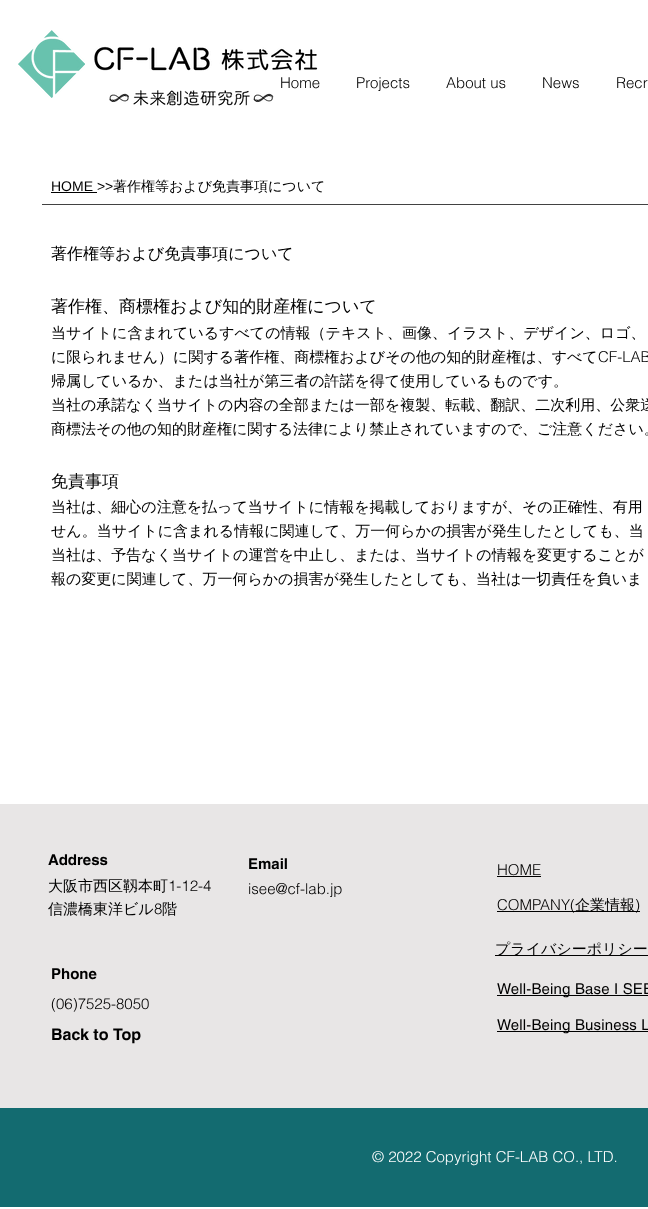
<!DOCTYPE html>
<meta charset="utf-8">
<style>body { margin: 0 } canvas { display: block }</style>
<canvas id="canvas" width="648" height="1209"></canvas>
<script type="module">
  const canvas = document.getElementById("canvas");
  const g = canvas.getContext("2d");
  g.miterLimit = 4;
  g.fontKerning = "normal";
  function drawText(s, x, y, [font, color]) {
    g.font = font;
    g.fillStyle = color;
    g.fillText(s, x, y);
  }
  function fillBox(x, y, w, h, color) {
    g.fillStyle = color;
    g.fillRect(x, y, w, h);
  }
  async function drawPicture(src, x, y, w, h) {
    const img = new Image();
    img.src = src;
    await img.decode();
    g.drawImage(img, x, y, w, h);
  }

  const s1 = ["300 15px helvetica", "#000000"];
  const s2 = ["14px Liberation Sans", "#000000"];
  const s3 = ["500 14px WenQuanYi Zen Hei", "#000000"];
  const s4 = ["500 16px WenQuanYi Zen Hei", "#000000"];
  const s5 = ["500 17px WenQuanYi Zen Hei", "#000000"];
  const s6 = ["500 15px WenQuanYi Zen Hei", "#000000"];
  const s7 = ["bold 15px helvetica", "#000000"];
  const s8 = ["bold 16px helvetica", "#000000"];
  const s9 = ["15px helvetica", "#000000"];
  const s10 = ["300 15px helvetica", "#FFFFFF"];

  fillBox(0, 0, 648, 1209, "#FFFFFF");
  await drawPicture("pic1.png", 18, 30, 67, 68);
  await drawPicture("pic2.png", 94, 46, 224, 25);
  await drawPicture("pic3.png", 109, 90, 165, 16);
  drawText("Home", 280, 88, s1);
  drawText("Projects", 356, 88, s1);
  drawText("About us", 446, 88, s1);
  drawText("News", 542, 88, s1);
  drawText("Recr", 616, 88, s1);
  drawText("HOME >>", 51, 191, s2);
  fillBox(51, 192, 46, 1, "#000000");
  drawText("著作権等および免責事項について", 113, 191, s3);
  fillBox(42, 204, 606, 1, "#424242");
  drawText("著作権等および免責事項について", 51, 259, s4);
  drawText("著作権、商標権および知的財産権について", 51, 312, s5);
  drawText("当サイトに含まれているすべての情報（テキスト、画像、イラスト、デザイン、ロゴ、", 51, 338, s6);
  drawText("に限られません）に関する著作権、商標権およびその他の知的財産権は、すべて", 51, 362, s6);
  drawText("CF-LAB", 598, 362, s1);
  drawText("帰属しているか、または当社が第三者の許諾を得て使用しているものです。", 51, 386, s6);
  drawText("当社の承諾なく当サイトの内容の全部または一部を複製、転載、翻訳、二次利用、公衆送", 51, 410, s6);
  drawText("商標法その他の知的財産権に関する法律により禁止されていますので、ご注意ください。", 51, 434, s6);
  drawText("免責事項", 51, 487, s5);
  drawText("当社は、細心の注意を払って当サイトに情報を掲載しておりますが、その正確性、有用", 51, 512, s6);
  drawText("せん。当サイトに含まれる情報に関連して、万一何らかの損害が発生したとしても、当", 51, 536, s6);
  drawText("当社は、予告なく当サイトの運営を中止し、または、当サイトの情報を変更することが", 51, 560, s6);
  drawText("報の変更に関連して、万一何らかの損害が発生したとしても、当社は一切責任を負いま", 51, 584, s6);
  fillBox(0, 804, 648, 304, "#E8E6E6");
  drawText("Address", 48, 865, s7);
  drawText("Email", 248, 869, s7);
  drawText("大阪市西区靱本町", 48, 891, s6);
  drawText("1-12-4", 168, 891, s1);
  drawText("信濃橋東洋ビル", 48, 914, s6);
  drawText("8", 154, 914, s1);
  drawText("階", 162, 914, s6);
  drawText("isee@cf-lab.jp", 248, 894, s1);
  drawText("Phone", 51, 979, s7);
  drawText("(06)7525-8050", 51, 1009, s1);
  drawText("Back to Top", 51, 1040, s8);
  drawText("HOME", 497, 875, s1);
  fillBox(497, 876, 44, 1, "#000000");
  fillBox(497, 911, 143, 1, "#000000");
  drawText("COMPANY(", 497, 910, s1);
  drawText("企業情報", 575, 910, s6);
  drawText(")", 635, 910, s1);
  fillBox(495, 955, 153, 1, "#000000");
  drawText("プライバシーポリシー", 495, 954, s6);
  fillBox(497, 995, 151, 1, "#000000");
  g.letterSpacing = "0.15px";
  drawText("Well-Being Base I SEE", 497, 994, s9);
  fillBox(497, 1031, 151, 1, "#000000");
  drawText("Well-Being Business L", 497, 1030, s9);
  fillBox(0, 1108, 648, 99, "#136B70");
  g.letterSpacing = "0px";
  drawText("©︎ 2022 Copyright CF-LAB CO., LTD.", 372, 1162, s10);
</script>
